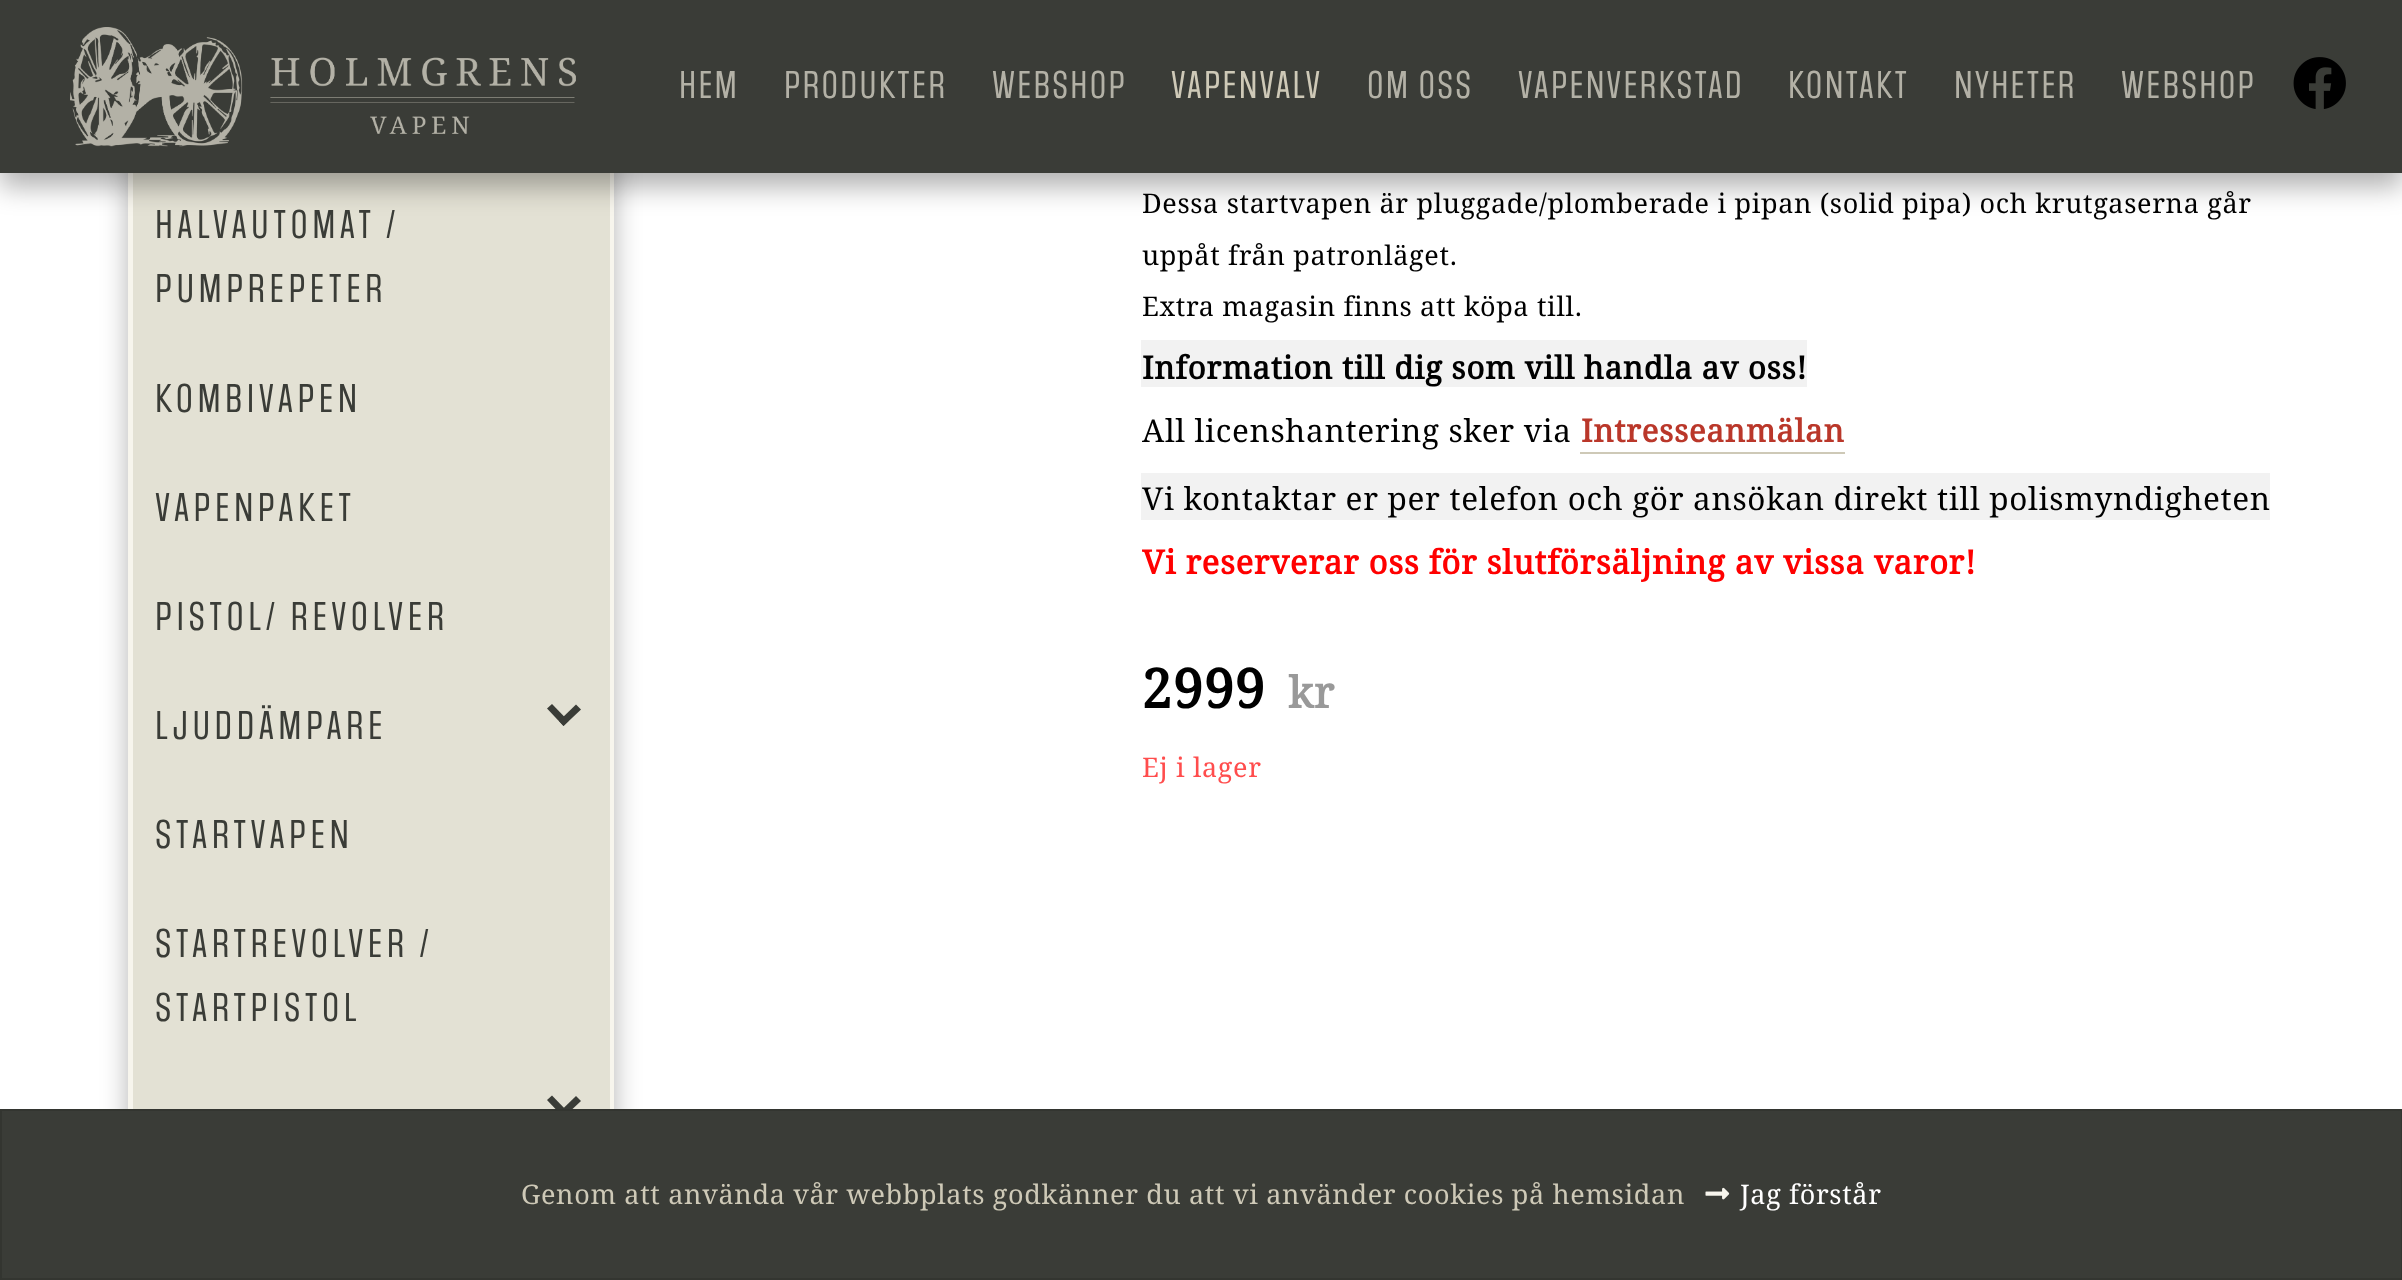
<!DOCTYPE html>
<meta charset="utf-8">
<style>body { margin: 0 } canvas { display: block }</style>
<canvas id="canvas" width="2402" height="1280"></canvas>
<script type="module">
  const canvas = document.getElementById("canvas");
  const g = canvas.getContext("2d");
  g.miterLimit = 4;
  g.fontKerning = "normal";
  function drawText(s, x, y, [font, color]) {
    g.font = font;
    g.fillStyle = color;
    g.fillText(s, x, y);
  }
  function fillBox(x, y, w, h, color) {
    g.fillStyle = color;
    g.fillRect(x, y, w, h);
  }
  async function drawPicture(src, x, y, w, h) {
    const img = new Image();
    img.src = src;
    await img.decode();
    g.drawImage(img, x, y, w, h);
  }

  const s1 = ["32.5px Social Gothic", "#B3B1A6"];
  const s2 = ["32.5px Social Gothic", "#CEC9B7"];
  const s3 = ["33.75px Social Gothic", "#3A3C37"];
  const s4 = ["27px Droid Serif", "#000000"];
  const s5 = ["bold 31.5px Droid Serif", "#000000"];
  const s6 = ["31.5px Droid Serif", "#000000"];
  const s7 = ["bold 31.5px Droid Serif", "#BA372A"];
  const s8 = ["bold 33px Droid Serif", "#FF0000"];
  const s9 = ["bold 54px Droid Serif", "#000000"];
  const s10 = ["bold 43px Droid Serif", "#999999"];
  const s11 = ["27px Droid Serif", "#FF4D4D"];
  const s12 = ["27px Droid Serif", "#CEC9B7"];
  const s13 = ["27px Droid Serif", "#FFFFFF"];

  fillBox(0, 0, 2402, 1280, "#FFFFFF");
  g.fillStyle = "rgba(0, 0, 0, 0.3)";
  g.filter = "blur(13.5px)";
  g.beginPath();
  g.roundRect(128, -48, 486, 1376, 7);
  g.fill();
  g.filter = "none";
  g.strokeStyle = "#F7F5ED";
  g.lineWidth = 5;
  g.strokeRect(130.5, -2.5, 481, 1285);
  fillBox(133, 173, 477, 936, "#E3E1D4");
  g.fillStyle = "rgba(0, 0, 0, 0.3)";
  g.filter = "blur(13.5px)";
  g.beginPath();
  g.rect(0, 14, 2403, 173);
  g.fill();
  g.filter = "none";
  fillBox(0, 0, 2402, 173, "#3A3C37");
  await drawPicture("pic1.png", 70, 27, 506, 120);
  g.letterSpacing = "2.25px";
  drawText("HEM", 679, 98, s1);
  drawText("PRODUKTER", 784, 98, s1);
  drawText("WEBSHOP", 992, 98, s1);
  drawText("VAPENVALV", 1171, 98, s2);
  drawText("OM OSS", 1367, 98, s1);
  drawText("VAPENVERKSTAD", 1518, 98, s1);
  drawText("KONTAKT", 1788, 98, s1);
  drawText("NYHETER", 1954, 98, s1);
  drawText("WEBSHOP", 2121, 98, s1);
  await drawPicture("pic2.png", 2293, 57, 53, 52);
  g.letterSpacing = "4.5px";
  drawText("HALVAUTOMAT /", 155, 238, s3);
  drawText("PUMPREPETER", 155, 302, s3);
  drawText("KOMBIVAPEN", 155, 412, s3);
  drawText("VAPENPAKET", 155, 521, s3);
  drawText("PISTOL/ REVOLVER", 155, 630, s3);
  drawText("LJUDDÄMPARE", 155, 739, s3);
  g.beginPath();
  g.moveTo(563.5, 726);
  g.lineTo(547, 708.5);
  g.lineTo(552, 704);
  g.lineTo(568.5, 721);
  g.closePath();
  g.fill();
  g.beginPath();
  g.moveTo(563.5, 726);
  g.lineTo(559, 721);
  g.lineTo(576, 704.5);
  g.lineTo(581, 709.5);
  g.closePath();
  g.fill();
  drawText("STARTVAPEN", 155, 848, s3);
  drawText("STARTREVOLVER /", 155, 957, s3);
  drawText("STARTPISTOL", 155, 1021, s3);
  g.beginPath();
  g.moveTo(563.5, 1117.5);
  g.lineTo(547, 1100);
  g.lineTo(552, 1095.5);
  g.lineTo(568.5, 1112.5);
  g.closePath();
  g.fill();
  g.beginPath();
  g.moveTo(563.5, 1117.5);
  g.lineTo(559, 1112.5);
  g.lineTo(576, 1096);
  g.lineTo(581, 1101);
  g.closePath();
  g.fill();
  g.letterSpacing = "0.67px";
  drawText("Dessa startvapen är pluggade/plomberade i pipan (solid pipa) och krutgaserna går", 1142, 213, s4);
  drawText("uppåt från patronläget.", 1142, 265, s4);
  drawText("Extra magasin finns att köpa till.", 1142, 316, s4);
  fillBox(1141, 340, 666, 47, "#F2F2F2");
  drawText("Information till dig som vill handla av oss!", 1142, 379, s5);
  drawText("All licenshantering sker via", 1142, 442, s6);
  drawText("Intresseanmälan", 1581, 442, s7);
  fillBox(1580, 452, 265, 2, "#CEC9B7");
  fillBox(1141, 473, 1129, 47, "#F2F2F2");
  drawText("Vi kontaktar er per telefon och gör ansökan direkt till polismyndigheten", 1142, 510, s6);
  drawText("Vi reserverar oss för slutförsäljning av vissa varor!", 1142, 574, s8);
  drawText("2999", 1142, 708, s9);
  drawText("kr", 1288, 708, s10);
  drawText("Ej i lager", 1142, 777, s11);
  g.fillStyle = "#3A3C37";
  g.beginPath();
  g.rect(1, 1110, 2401, 169);
  g.fill();
  g.strokeStyle = "#333530";
  g.lineWidth = 2;
  g.stroke();
  drawText("Genom att använda vår webbplats godkänner du att vi använder cookies på hemsidan", 521, 1204, s12);
  await drawPicture("pic3.png", 1705, 1187, 25, 13);
  drawText("Jag förstår", 1740, 1204, s13);
</script>
